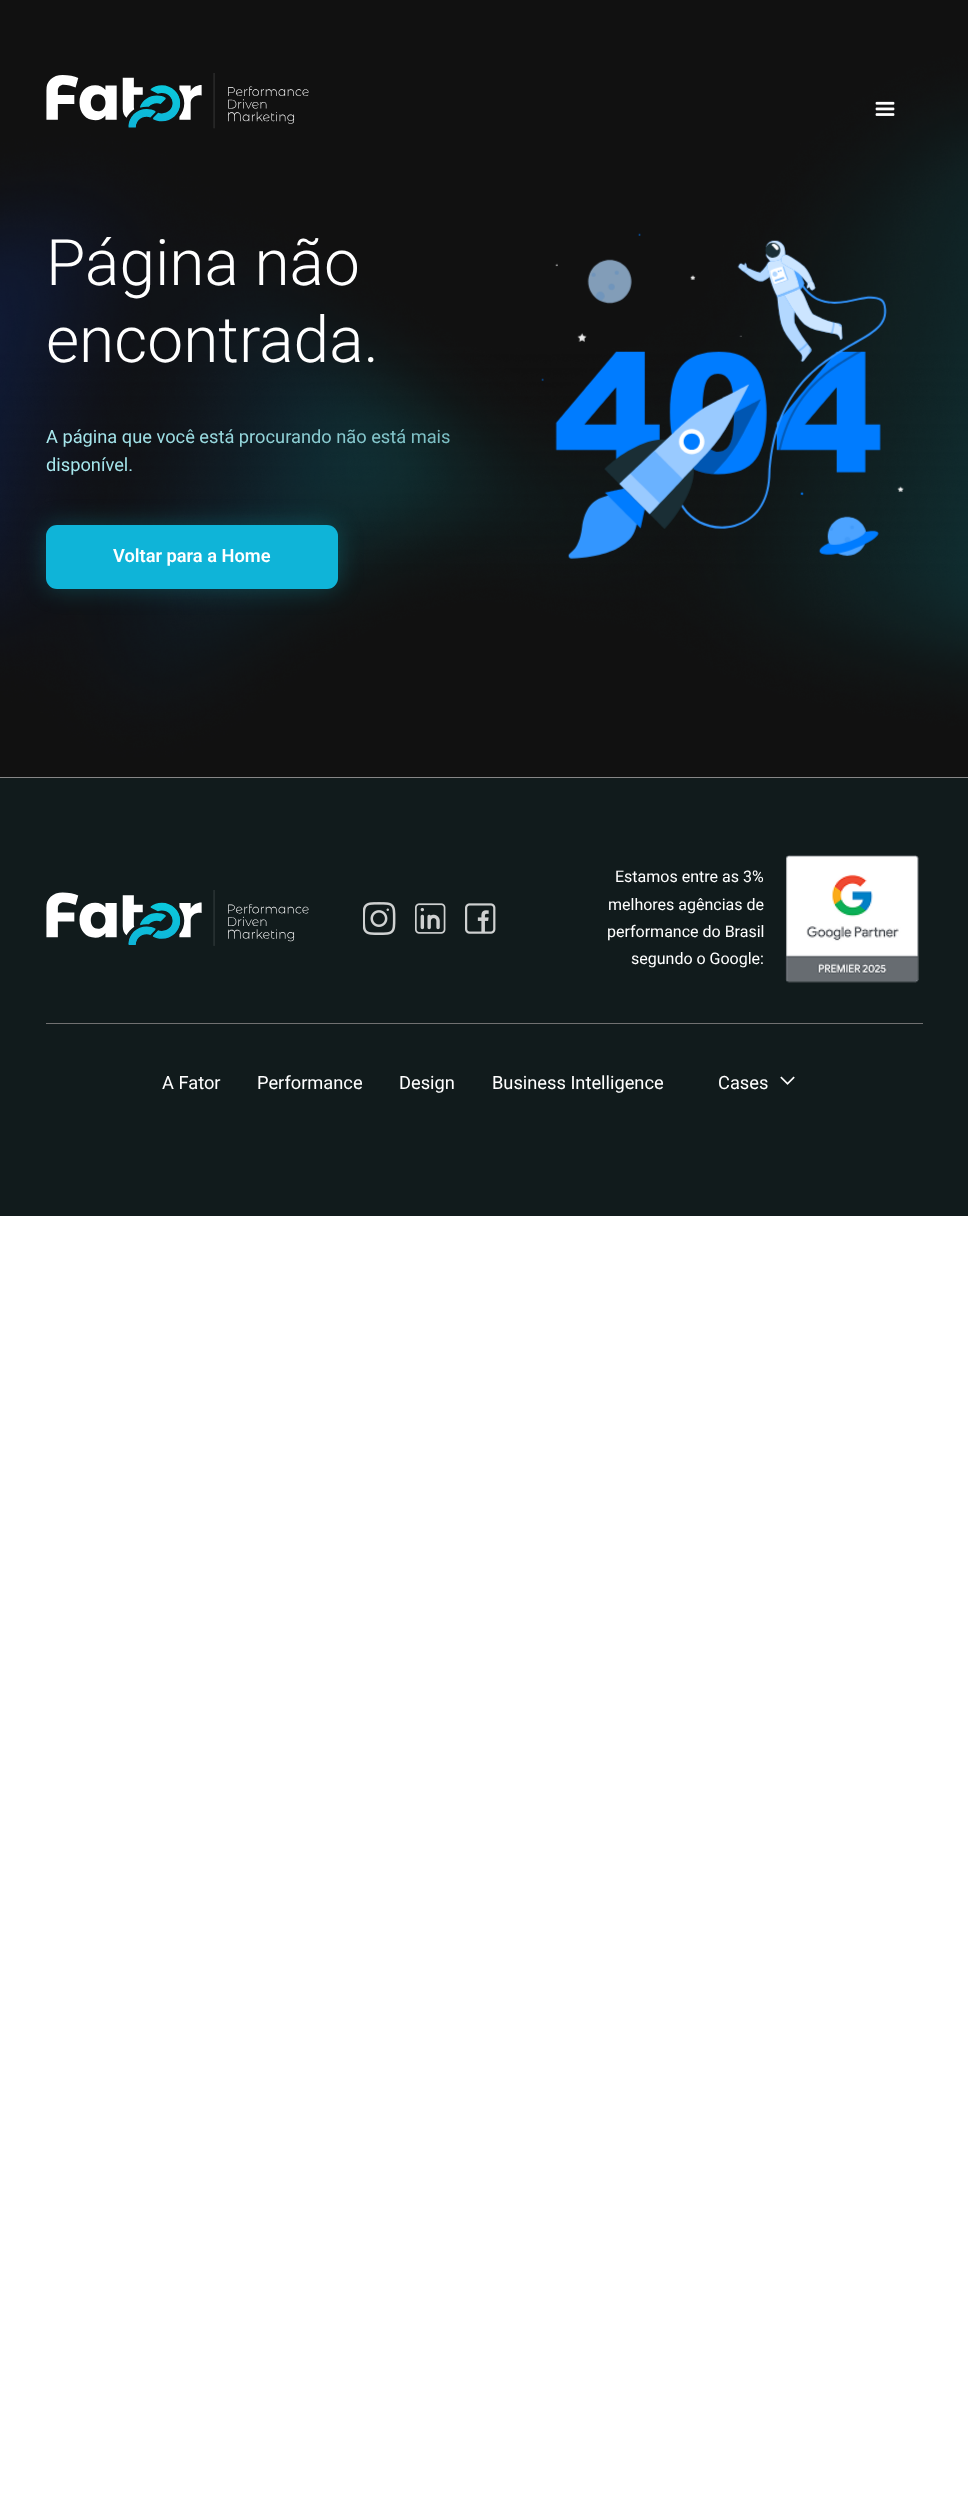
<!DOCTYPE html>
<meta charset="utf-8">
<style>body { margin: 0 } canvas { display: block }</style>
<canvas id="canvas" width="968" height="2508"></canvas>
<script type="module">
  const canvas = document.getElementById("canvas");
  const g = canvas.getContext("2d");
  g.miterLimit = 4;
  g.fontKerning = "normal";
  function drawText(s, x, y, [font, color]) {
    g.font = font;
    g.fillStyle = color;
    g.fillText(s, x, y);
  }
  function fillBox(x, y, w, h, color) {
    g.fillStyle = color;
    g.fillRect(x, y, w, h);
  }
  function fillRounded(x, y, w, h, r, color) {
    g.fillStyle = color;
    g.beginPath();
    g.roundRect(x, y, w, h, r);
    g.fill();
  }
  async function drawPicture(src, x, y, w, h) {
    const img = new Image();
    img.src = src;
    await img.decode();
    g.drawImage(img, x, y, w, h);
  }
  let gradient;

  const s1 = ["300 64px Roboto", "#FFFFFF"];
  const s2 = ["600 18.25px Roboto", "#FFFFFF"];
  const s3 = ["16px Roboto", "#FFFFFF"];
  const s4 = ["18.25px Roboto", "#FFFFFF"];

  fillBox(0, 0, 968, 2508, "#FFFFFF");
  await drawPicture("pic3.png", 0, 0, 968, 778);
  await drawPicture("pic1.png", 46, 73, 263, 56);
  await drawPicture("pic2.png", 875, 101, 20, 15);
  drawText("Página não", 46, 285, s1);
  drawText("encontrada.", 46, 362, s1);
  g.font = "18.25px Roboto";
  gradient = g.createLinearGradient(45, 471, 476, 433);
  gradient.addColorStop(0, "#AAEAF0");
  gradient.addColorStop(1, "#78BBC0");
  g.fillStyle = gradient;
  g.fillText("A página que você está procurando não está mais", 46, 443);
  g.fillText("disponível.", 46, 471);
  g.fillStyle = "rgba(11, 201, 220, 0.25)";
  g.filter = "blur(12.5px)";
  g.beginPath();
  g.roundRect(46, 525, 292, 64, 11);
  g.fill();
  g.filter = "none";
  fillRounded(46, 525, 292, 64, 11, "#0FB4D8");
  drawText("Voltar para a Home", 113, 562, s2);
  await drawPicture("pic4.png", 541, 233, 363, 326);
  fillBox(0, 778, 968, 438, "#111B1C");
  await drawPicture("pic5.png", 46, 890, 263, 56);
  await drawPicture("pic6.png", 363, 902, 33, 33);
  await drawPicture("pic7.png", 415, 903, 31, 31);
  await drawPicture("pic8.png", 465, 903, 31, 31);
  drawText("Estamos entre as 3%", 615, 882, s3);
  drawText("melhores agências de", 608, 910, s3);
  drawText("performance do Brasil", 607, 937, s3);
  drawText("segundo o Google:", 631, 964, s3);
  await drawPicture("pic9.png", 785, 855, 134, 128);
  fillBox(46, 1023, 877, 1, "#717171");
  drawText("A Fator", 162, 1089, s4);
  drawText("Performance", 257, 1089, s4);
  drawText("Design", 399, 1089, s4);
  drawText("Business Intelligence", 492, 1089, s4);
  drawText("Cases", 718, 1089, s4);
  await drawPicture("pic10.png", 780, 1076, 15, 9);
</script>
